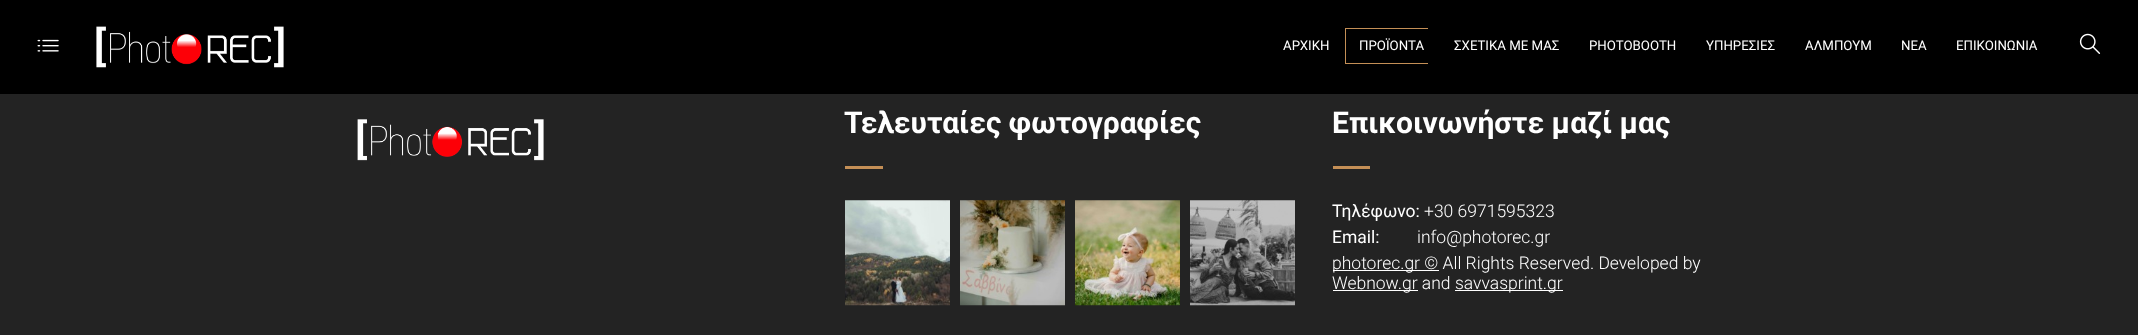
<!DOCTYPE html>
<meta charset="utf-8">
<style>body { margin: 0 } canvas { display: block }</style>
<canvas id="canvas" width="2138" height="335"></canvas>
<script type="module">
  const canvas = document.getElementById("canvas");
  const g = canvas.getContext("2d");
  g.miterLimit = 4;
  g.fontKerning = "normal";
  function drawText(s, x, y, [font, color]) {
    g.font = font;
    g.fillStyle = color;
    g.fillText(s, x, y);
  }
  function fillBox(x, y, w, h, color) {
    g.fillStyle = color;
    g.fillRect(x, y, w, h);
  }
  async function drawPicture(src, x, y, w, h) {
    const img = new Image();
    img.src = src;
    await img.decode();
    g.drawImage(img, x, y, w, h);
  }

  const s1 = ["13.25px Roboto", "#FFFFFF"];
  const s2 = ["bold 30px Roboto", "#FFFFFF"];
  const s3 = ["17.5px Roboto", "#FFFFFF"];
  const s4 = ["300 17.5px Roboto", "#FFFFFF"];

  fillBox(0, 0, 2138, 335, "#232323");
  fillBox(0, 0, 2138, 94, "#000000");
  await drawPicture("pic1.png", 37, 39, 22, 13);
  await drawPicture("pic2.png", 96, 26, 188, 42);
  drawText("ΑΡΧΙΚΗ", 1283, 50, s1);
  drawText("ΠΡΟΪΟΝΤΑ", 1359, 50, s1);
  fillBox(1345, 28, 83, 1, "#C48F56");
  fillBox(1345, 63, 83, 1, "#C48F56");
  fillBox(1345, 28, 1, 36, "#C48F56");
  drawText("ΣΧΕΤΙΚΑ ΜΕ ΜΑΣ", 1454, 50, s1);
  drawText("PHOTOBOOTH", 1589, 50, s1);
  drawText("ΥΠΗΡΕΣΙΕΣ", 1706, 50, s1);
  drawText("ΑΛΜΠΟΥΜ", 1805, 50, s1);
  drawText("ΝΕΑ", 1901, 50, s1);
  drawText("ΕΠΙΚΟΙΝΩΝΙΑ", 1956, 50, s1);
  await drawPicture("pic3.png", 2079, 33, 22, 21);
  await drawPicture("pic4.png", 357, 119, 187, 42);
  drawText("Τελευταίες φωτογραφίες", 844, 133, s2);
  fillBox(845, 166, 38, 3, "#C48F56");
  await drawPicture("pic5.png", 845, 200, 105, 106);
  await drawPicture("pic6.png", 960, 200, 105, 106);
  await drawPicture("pic7.png", 1075, 200, 105, 106);
  await drawPicture("pic8.png", 1190, 200, 105, 106);
  drawText("Επικοινωνήστε μαζί μας", 1332, 133, s2);
  fillBox(1333, 166, 37, 3, "#C48F56");
  drawText("Τηλέφωνο:", 1332, 217, s3);
  drawText("+30 6971595323", 1424, 217, s4);
  drawText("Email:", 1332, 243, s3);
  drawText("info@photorec.gr", 1417, 243, s4);
  fillBox(1333, 270, 106, 1, "#FFFFFF");
  drawText("photorec.gr © All Rights Reserved. Developed by", 1332, 269, s4);
  fillBox(1333, 290, 85, 1, "#FFFFFF");
  drawText("Webnow.gr and", 1332, 289, s4);
  fillBox(1455, 290, 108, 1, "#FFFFFF");
  drawText("savvasprint.gr", 1455, 289, s4);
</script>
